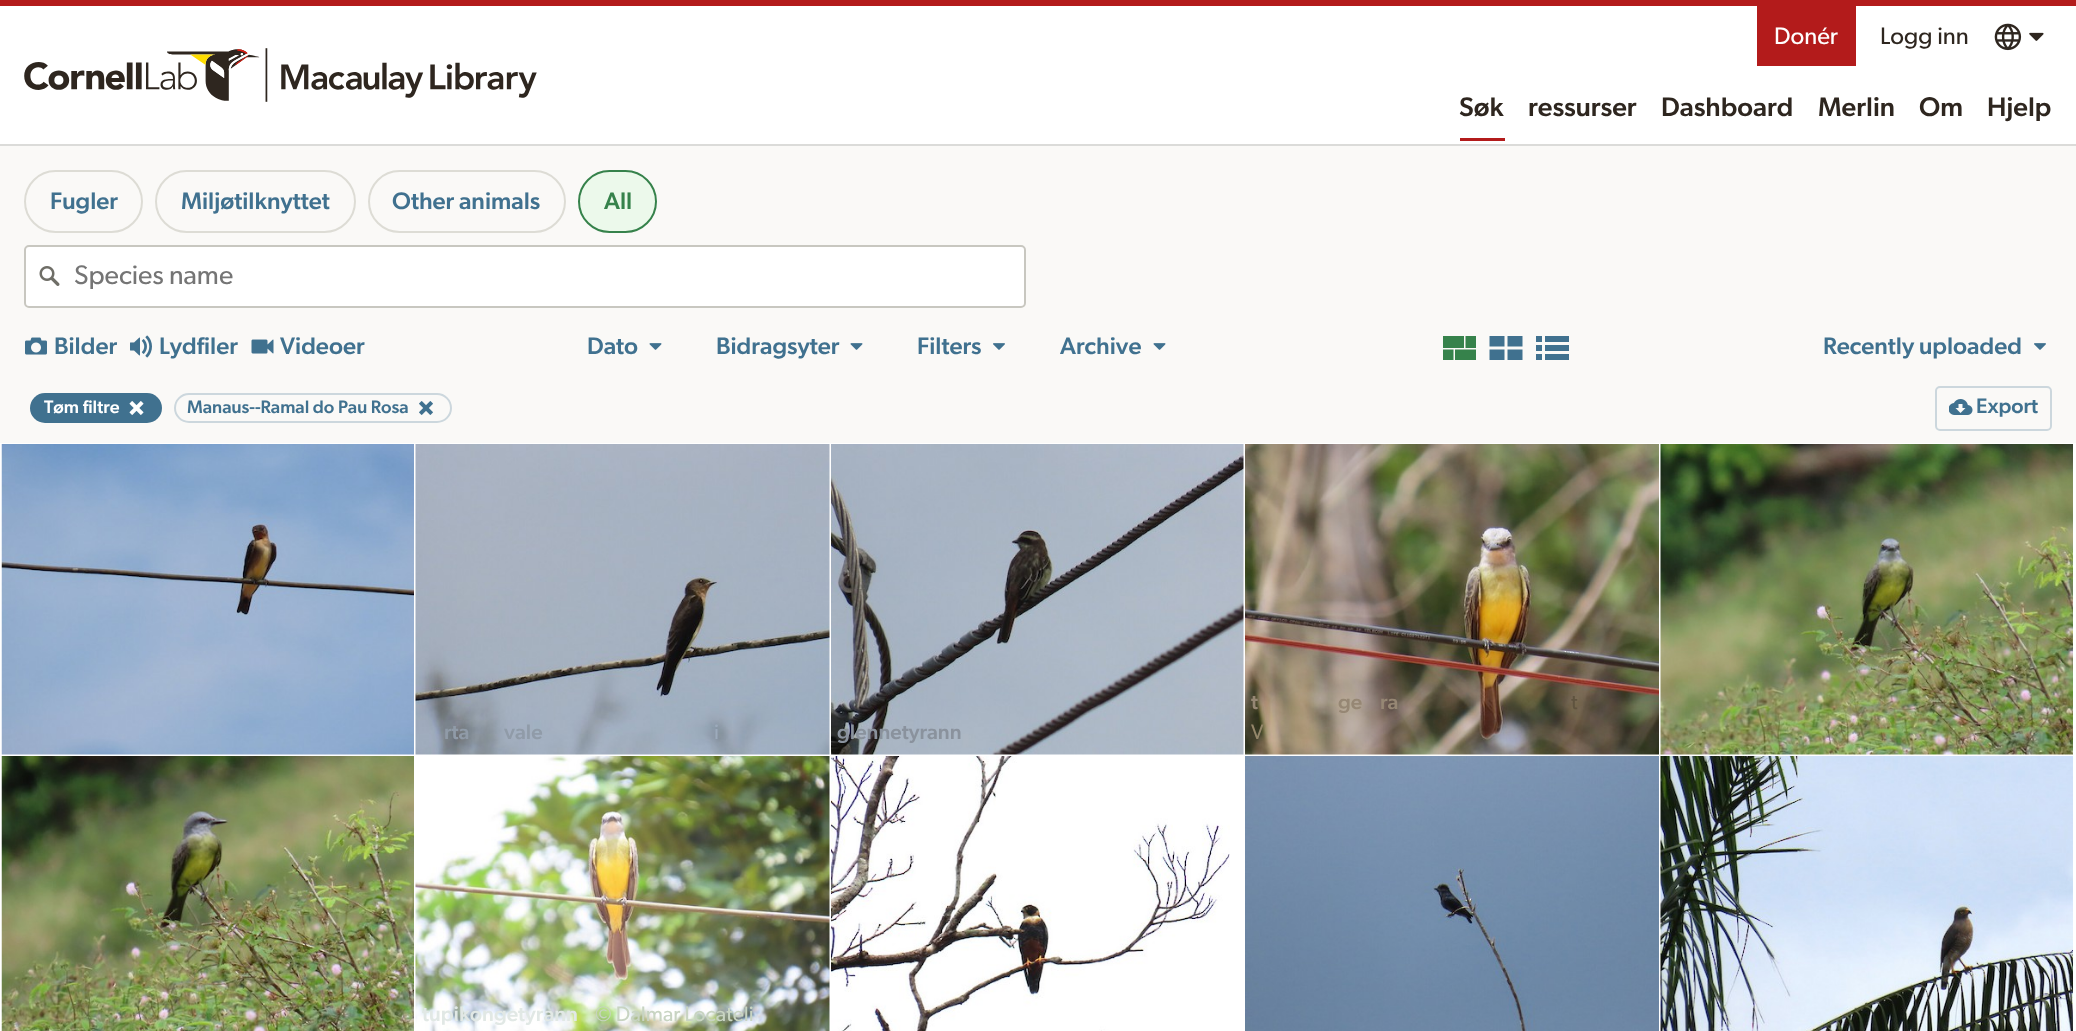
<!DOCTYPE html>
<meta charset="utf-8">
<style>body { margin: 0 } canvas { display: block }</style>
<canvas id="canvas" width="2076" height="1031"></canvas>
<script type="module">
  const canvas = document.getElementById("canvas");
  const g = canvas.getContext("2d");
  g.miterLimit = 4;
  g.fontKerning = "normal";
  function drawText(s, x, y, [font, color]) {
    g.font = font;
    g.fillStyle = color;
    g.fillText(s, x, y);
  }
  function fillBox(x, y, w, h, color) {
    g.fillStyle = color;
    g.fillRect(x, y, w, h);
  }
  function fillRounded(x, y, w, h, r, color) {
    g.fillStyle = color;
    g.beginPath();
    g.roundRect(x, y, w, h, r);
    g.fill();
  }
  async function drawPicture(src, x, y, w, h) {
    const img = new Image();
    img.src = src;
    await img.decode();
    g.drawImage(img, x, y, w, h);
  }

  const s1 = ["24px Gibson", "#FFFFFF"];
  const s2 = ["24px Gibson", "#2E261F"];
  const s3 = ["500 27px Gibson", "#2E261F"];
  const s4 = ["500 24px Gibson", "#40718F"];
  const s5 = ["500 24px Gibson", "#36824B"];
  const s6 = ["27px Gibson", "#757575"];
  const s7 = ["500 18px Gibson", "#FFFFFF"];
  const s8 = ["500 18px Gibson", "#40718F"];
  const s9 = ["500 21px Gibson", "#40718F"];
  const s10 = ["500 21px Gibson", "#909BA8"];
  const s11 = ["21px Gibson", "#9DABBC"];
  const s12 = ["500 21px Gibson", "#8A929D"];
  const s13 = ["500 21px Gibson", "#968774"];
  const s14 = ["21px Gibson", "#5F533F"];
  const s15 = ["21px Gibson", "#94866A"];
  const s16 = ["500 21px Gibson", "#E1E8E5"];
  const s17 = ["21px Gibson", "#C8D4C2"];

  fillBox(0, 0, 2076, 1031, "#FFFFFF");
  fillBox(0, 0, 2076, 6, "#B31B1B");
  fillBox(0, 144, 2076, 2, "#DBDBD9");
  await drawPicture("pic1.png", 24, 48, 513, 54);
  fillBox(1757, 6, 99, 60, "#B31B1B");
  drawText("Donér", 1774, 44, s1);
  drawText("Logg inn", 1880, 44, s2);
  await drawPicture("pic2.png", 1994, 23, 28, 28);
  await drawPicture("pic3.png", 2029, 32, 15, 9);
  fillBox(1460, 138, 45, 3, "#B31B1B");
  drawText("Søk", 1459, 116, s3);
  drawText("ressurser", 1528, 116, s3);
  drawText("Dashboard", 1661, 116, s3);
  drawText("Merlin", 1818, 116, s3);
  drawText("Om", 1919, 116, s3);
  drawText("Hjelp", 1987, 116, s3);
  fillBox(0, 146, 2076, 297, "#FAF9F7");
  g.beginPath();
  g.roundRect(25, 171, 117, 61, 30.5);
  g.strokeStyle = "#DDDCD5";
  g.lineWidth = 2;
  g.stroke();
  drawText("Fugler", 50, 209, s4);
  g.beginPath();
  g.roundRect(156, 171, 199, 61, 30.5);
  g.stroke();
  drawText("Miljøtilknyttet", 181, 209, s4);
  g.beginPath();
  g.roundRect(369, 171, 196, 61, 30.5);
  g.stroke();
  drawText("Other animals", 392, 209, s4);
  g.fillStyle = "#ECF9EB";
  g.beginPath();
  g.roundRect(579, 171, 77, 61, 30.5);
  g.fill();
  g.strokeStyle = "#36824B";
  g.stroke();
  drawText("All", 604, 209, s5);
  g.fillStyle = "#FFFFFF";
  g.beginPath();
  g.roundRect(25, 246, 1000, 61, 4);
  g.fill();
  g.strokeStyle = "#C8C7C0";
  g.stroke();
  await drawPicture("pic4.png", 39, 266, 21, 20);
  drawText("Species name", 74, 284, s6);
  await drawPicture("pic5.png", 25, 337, 22, 18);
  drawText("Bilder", 54, 354, s4);
  await drawPicture("pic6.png", 130, 335, 22, 23);
  drawText("Lydfiler", 159, 354, s4);
  await drawPicture("pic7.png", 251, 339, 23, 15);
  drawText("Videoer", 280, 354, s4);
  drawText("Dato", 587, 354, s4);
  await drawPicture("pic8.png", 649, 343, 13, 7);
  drawText("Bidragsyter", 716, 354, s4);
  await drawPicture("pic8.png", 850, 343, 13, 7);
  drawText("Filters", 917, 354, s4);
  await drawPicture("pic9.png", 993, 343, 12, 7);
  drawText("Archive", 1060, 354, s4);
  await drawPicture("pic8.png", 1153, 343, 13, 7);
  await drawPicture("pic10.png", 1443, 336, 33, 24);
  await drawPicture("pic11.png", 1489, 336, 34, 24);
  await drawPicture("pic12.png", 1536, 336, 33, 24);
  drawText("Recently uploaded", 1823, 354, s4);
  await drawPicture("pic9.png", 2034, 343, 12, 7);
  fillRounded(30, 393, 132, 30, 15, "#40718F");
  drawText("Tøm filtre", 44, 413, s7);
  await drawPicture("pic13.png", 129, 401, 15, 14);
  g.beginPath();
  g.roundRect(175, 394, 276, 28, 14);
  g.strokeStyle = "#CCD7DD";
  g.stroke();
  drawText("Manaus--Ramal do Pau Rosa", 187, 413, s8);
  await drawPicture("pic14.png", 419, 401, 14, 14);
  g.beginPath();
  g.roundRect(1936, 387, 115, 43, 4);
  g.stroke();
  await drawPicture("pic15.png", 1949, 399, 24, 16);
  drawText("Export", 1976, 413, s9);
  await drawPicture("pic16.png", 1, 444, 413, 311);
  await drawPicture("pic17.png", 415, 444, 415, 311);
  drawText("rta", 444, 739, s10);
  drawText("vale", 504, 739, s10);
  drawText("i", 714, 739, s11);
  await drawPicture("pic18.png", 831, 444, 413, 311);
  drawText("glennetyrann", 837, 739, s12);
  await drawPicture("pic19.png", 1245, 444, 414, 311);
  drawText("t", 1251, 709, s13);
  drawText("ge", 1338, 709, s13);
  drawText("ra", 1380, 709, s13);
  drawText("t", 1571, 709, s14);
  drawText("V", 1251, 739, s15);
  await drawPicture("pic20.png", 1660, 444, 413, 311);
  await drawPicture("pic21.png", 1, 756, 413, 275);
  await drawPicture("pic22.png", 415, 756, 415, 275);
  drawText("tupikongetyrann", 422, 1021, s16);
  drawText("© Dalmar Locateli", 595, 1021, s17);
  await drawPicture("pic23.png", 831, 756, 399, 275);
  await drawPicture("pic24.png", 1245, 756, 414, 275);
  await drawPicture("pic25.png", 1660, 756, 413, 275);
</script>
